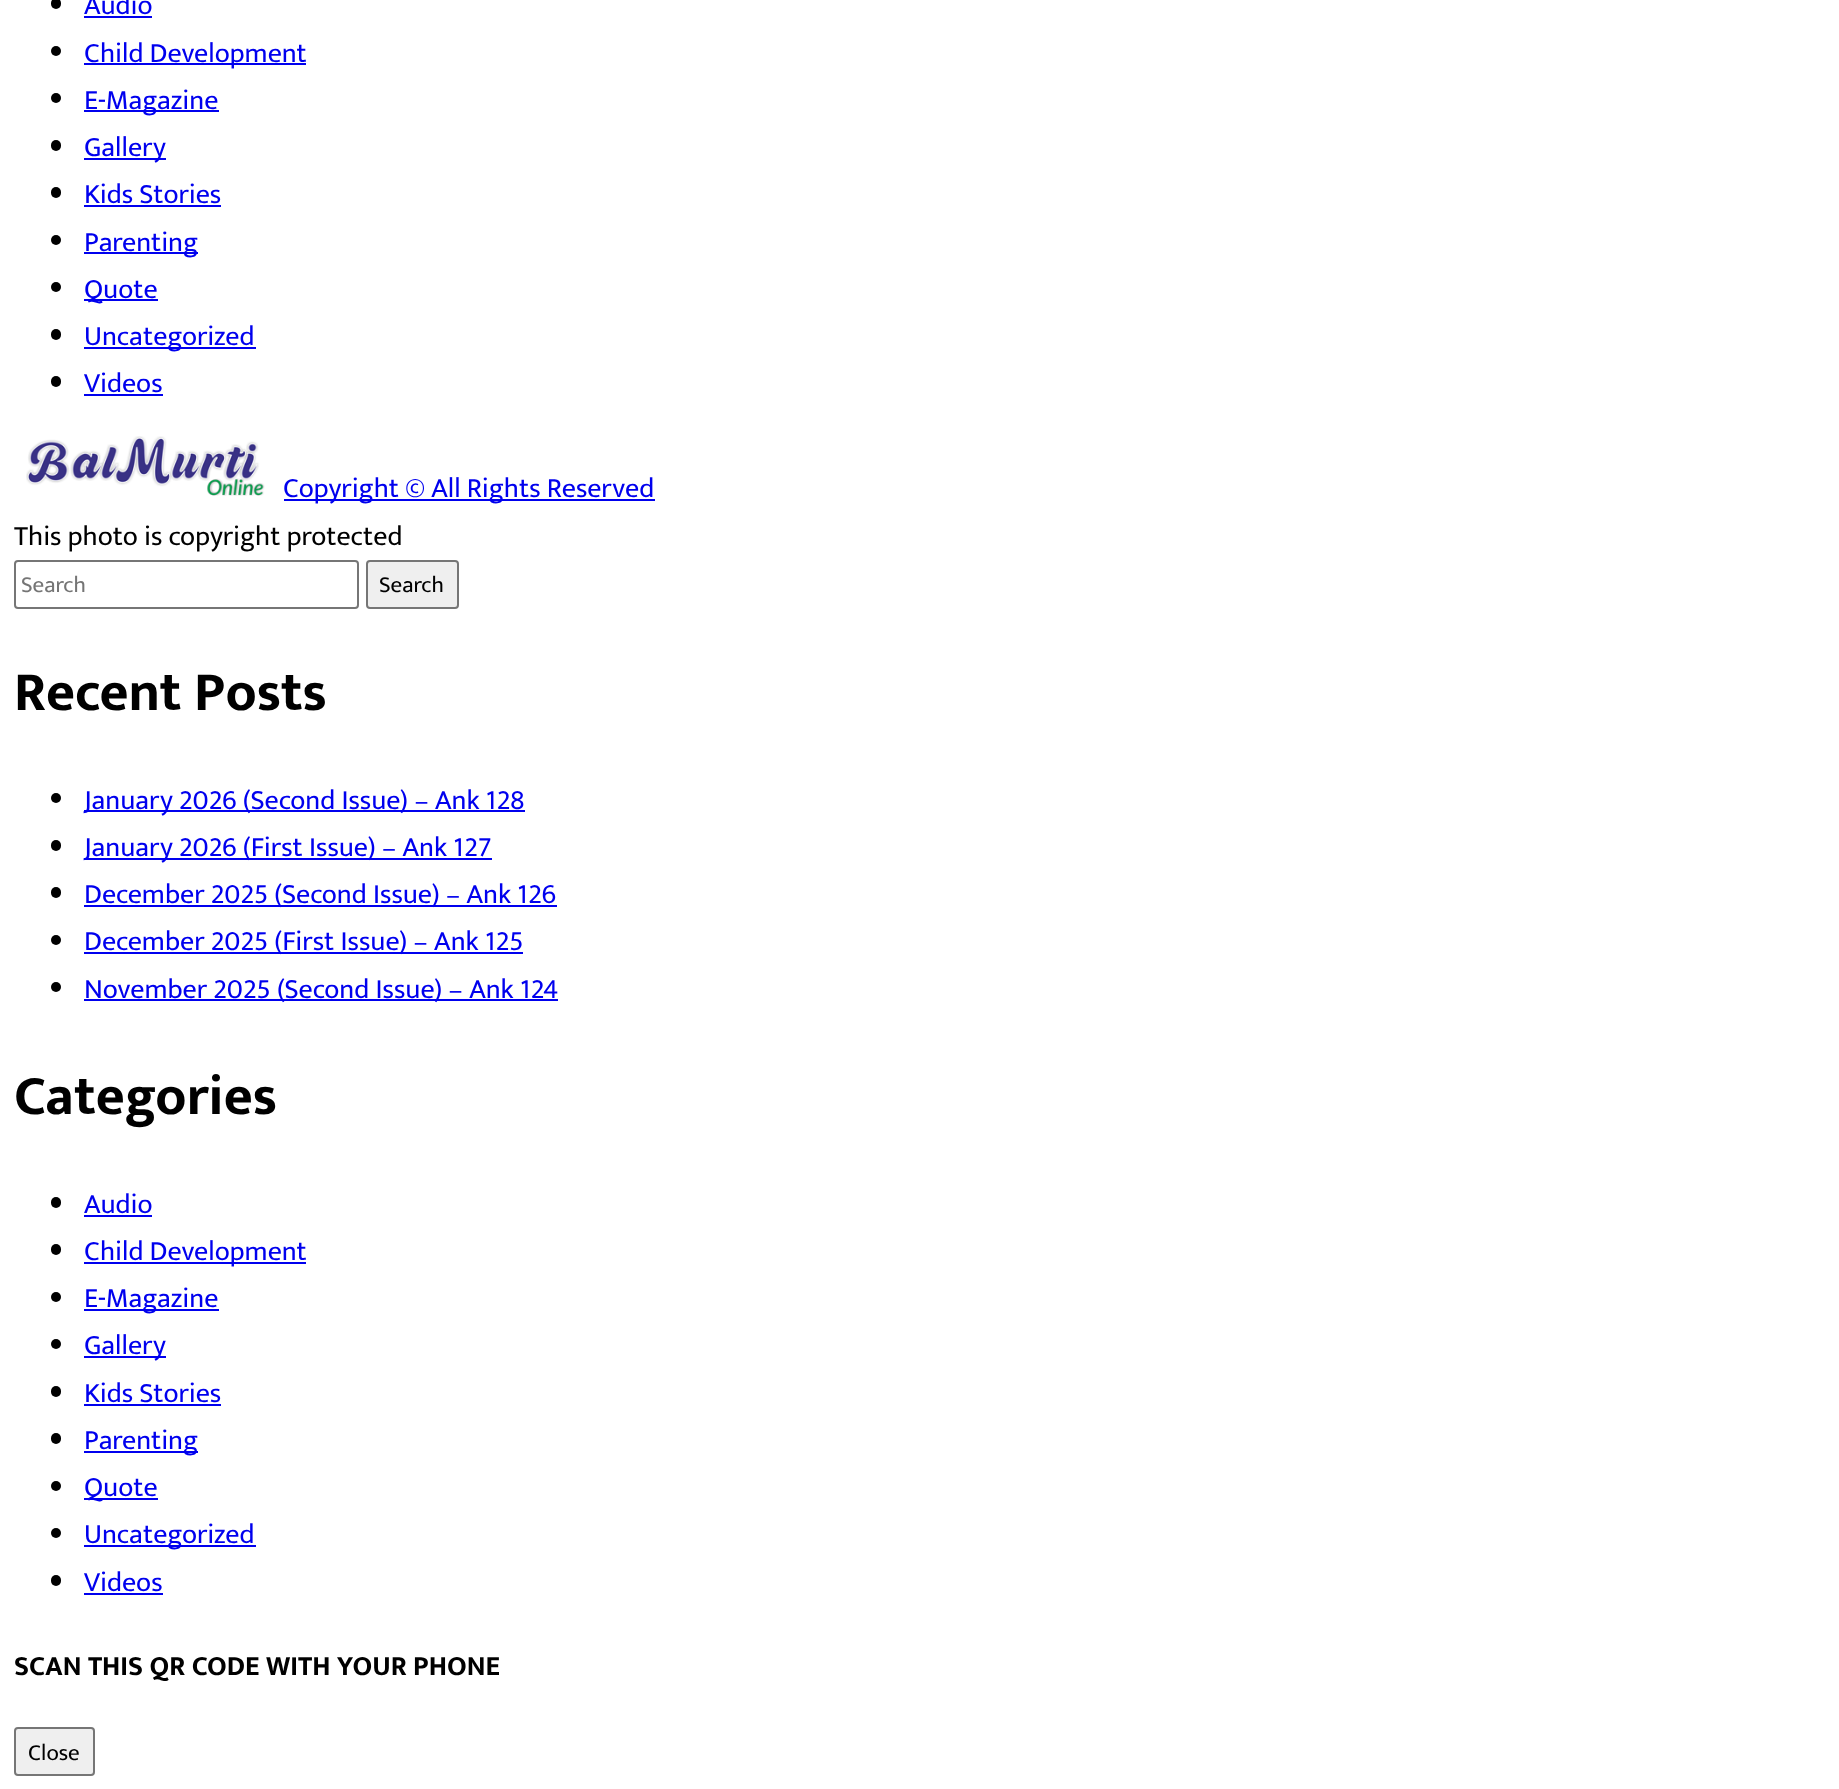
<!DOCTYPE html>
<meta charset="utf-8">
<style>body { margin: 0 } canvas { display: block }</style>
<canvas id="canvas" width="1839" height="1789"></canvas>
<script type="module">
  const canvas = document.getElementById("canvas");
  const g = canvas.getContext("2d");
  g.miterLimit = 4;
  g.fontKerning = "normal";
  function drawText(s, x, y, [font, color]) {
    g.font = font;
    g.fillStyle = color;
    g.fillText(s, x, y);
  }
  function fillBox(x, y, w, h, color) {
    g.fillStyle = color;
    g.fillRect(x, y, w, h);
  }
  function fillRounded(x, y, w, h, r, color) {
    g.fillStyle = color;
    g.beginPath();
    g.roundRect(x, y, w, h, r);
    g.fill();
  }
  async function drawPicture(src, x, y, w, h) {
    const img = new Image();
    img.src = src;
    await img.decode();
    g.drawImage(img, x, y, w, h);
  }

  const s1 = ["28px Mukta Vaani", "#0000EE"];
  const s2 = ["28px Mukta Vaani", "#000000"];
  const s3 = ["23px Mukta Vaani", "#757575"];
  const s4 = ["23px Mukta Vaani", "#000000"];
  const s5 = ["bold 56px Mukta Vaani", "#000000"];
  const s6 = ["bold 28px Mukta Vaani", "#000000"];

  fillBox(0, 0, 1839, 1789, "#FFFFFF");
  fillRounded(51, -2, 10, 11, 5, "#000000");
  drawText("Audio", 84, 14, s1);
  fillBox(84, 16, 68, 2, "#0000EE");
  g.fillStyle = "#000000";
  g.beginPath();
  g.arc(56, 51, 5, 0, Math.PI * 2);
  g.fill();
  fillBox(84, 63, 222, 2, "#0000EE");
  drawText("Child Development", 84, 62, s1);
  g.fillStyle = "#000000";
  g.beginPath();
  g.arc(56, 98, 5, 0, Math.PI * 2);
  g.fill();
  fillBox(84, 110, 135, 2, "#0000EE");
  drawText("E-Magazine", 84, 109, s1);
  fillRounded(51, 140, 10, 11, 5, "#000000");
  fillBox(84, 158, 82, 2, "#0000EE");
  drawText("Gallery", 84, 156, s1);
  fillRounded(51, 187, 10, 11, 5, "#000000");
  drawText("Kids Stories", 84, 203, s1);
  fillBox(84, 205, 137, 2, "#0000EE");
  g.fillStyle = "#000000";
  g.beginPath();
  g.arc(56, 240, 5, 0, Math.PI * 2);
  g.fill();
  fillBox(84, 252, 114, 2, "#0000EE");
  drawText("Parenting", 84, 251, s1);
  g.fillStyle = "#000000";
  g.beginPath();
  g.arc(56, 287, 5, 0, Math.PI * 2);
  g.fill();
  fillBox(84, 299, 74, 2, "#0000EE");
  drawText("Quote", 84, 298, s1);
  fillRounded(51, 329, 10, 11, 5, "#000000");
  fillBox(84, 347, 172, 2, "#0000EE");
  drawText("Uncategorized", 84, 345, s1);
  fillRounded(51, 376, 10, 11, 5, "#000000");
  drawText("Videos", 84, 392, s1);
  fillBox(84, 394, 79, 2, "#0000EE");
  await drawPicture("pic1.png", 26, 436, 239, 60);
  fillBox(284, 499, 371, 2, "#0000EE");
  drawText("Copyright © All Rights Reserved", 283, 497, s1);
  drawText("This photo is copyright protected", 14, 545, s2);
  g.beginPath();
  g.roundRect(15, 561, 343, 47, 3);
  g.strokeStyle = "#767676";
  g.lineWidth = 2;
  g.stroke();
  drawText("Search", 21, 592, s3);
  g.fillStyle = "#EFEFEF";
  g.beginPath();
  g.roundRect(367, 561, 91, 47, 3);
  g.fill();
  g.stroke();
  drawText("Search", 379, 592, s4);
  drawText("Recent Posts", 14, 710, s5);
  g.beginPath();
  g.arc(56, 798, 5, 0, Math.PI * 2);
  g.fill();
  fillBox(84, 810, 441, 2, "#0000EE");
  drawText("January 2026 (Second Issue) – Ank 128", 84, 809, s1);
  fillRounded(51, 840, 10, 11, 5, "#000000");
  fillBox(84, 858, 408, 2, "#0000EE");
  drawText("January 2026 (First Issue) – Ank 127", 84, 856, s1);
  fillRounded(51, 887, 10, 11, 5, "#000000");
  fillBox(84, 905, 473, 2, "#0000EE");
  drawText("December 2025 (Second Issue) – Ank 126", 84, 903, s1);
  g.fillStyle = "#000000";
  g.beginPath();
  g.arc(56, 940, 5, 0, Math.PI * 2);
  g.fill();
  fillBox(84, 952, 439, 2, "#0000EE");
  drawText("December 2025 (First Issue) – Ank 125", 84, 950, s1);
  g.fillStyle = "#000000";
  g.beginPath();
  g.arc(56, 987, 5, 0, Math.PI * 2);
  g.fill();
  fillBox(84, 999, 474, 2, "#0000EE");
  drawText("November 2025 (Second Issue) – Ank 124", 84, 998, s1);
  drawText("Categories", 14, 1114, s5);
  fillRounded(51, 1197, 10, 11, 5, "#000000");
  drawText("Audio", 84, 1213, s1);
  fillBox(84, 1215, 68, 2, "#0000EE");
  fillRounded(51, 1244, 10, 11, 5, "#000000");
  fillBox(84, 1262, 222, 2, "#0000EE");
  drawText("Child Development", 84, 1260, s1);
  g.fillStyle = "#000000";
  g.beginPath();
  g.arc(56, 1297, 5, 0, Math.PI * 2);
  g.fill();
  fillBox(84, 1309, 135, 2, "#0000EE");
  drawText("E-Magazine", 84, 1307, s1);
  g.fillStyle = "#000000";
  g.beginPath();
  g.arc(56, 1344, 5, 0, Math.PI * 2);
  g.fill();
  fillBox(84, 1356, 82, 2, "#0000EE");
  drawText("Gallery", 84, 1354, s1);
  fillRounded(51, 1386, 10, 11, 5, "#000000");
  drawText("Kids Stories", 84, 1402, s1);
  fillBox(84, 1404, 137, 2, "#0000EE");
  fillRounded(51, 1433, 10, 11, 5, "#000000");
  fillBox(84, 1451, 114, 2, "#0000EE");
  drawText("Parenting", 84, 1449, s1);
  g.fillStyle = "#000000";
  g.beginPath();
  g.arc(56, 1486, 5, 0, Math.PI * 2);
  g.fill();
  fillBox(84, 1498, 74, 2, "#0000EE");
  drawText("Quote", 84, 1496, s1);
  g.fillStyle = "#000000";
  g.beginPath();
  g.arc(56, 1533, 5, 0, Math.PI * 2);
  g.fill();
  fillBox(84, 1545, 172, 2, "#0000EE");
  drawText("Uncategorized", 84, 1543, s1);
  fillRounded(51, 1575, 10, 11, 5, "#000000");
  drawText("Videos", 84, 1591, s1);
  fillBox(84, 1593, 79, 2, "#0000EE");
  drawText("SCAN THIS QR CODE WITH YOUR PHONE", 14, 1675, s6);
  g.fillStyle = "#EFEFEF";
  g.beginPath();
  g.roundRect(15, 1728, 79, 47, 3);
  g.fill();
  g.stroke();
  drawText("Close", 28, 1760, s4);
</script>
